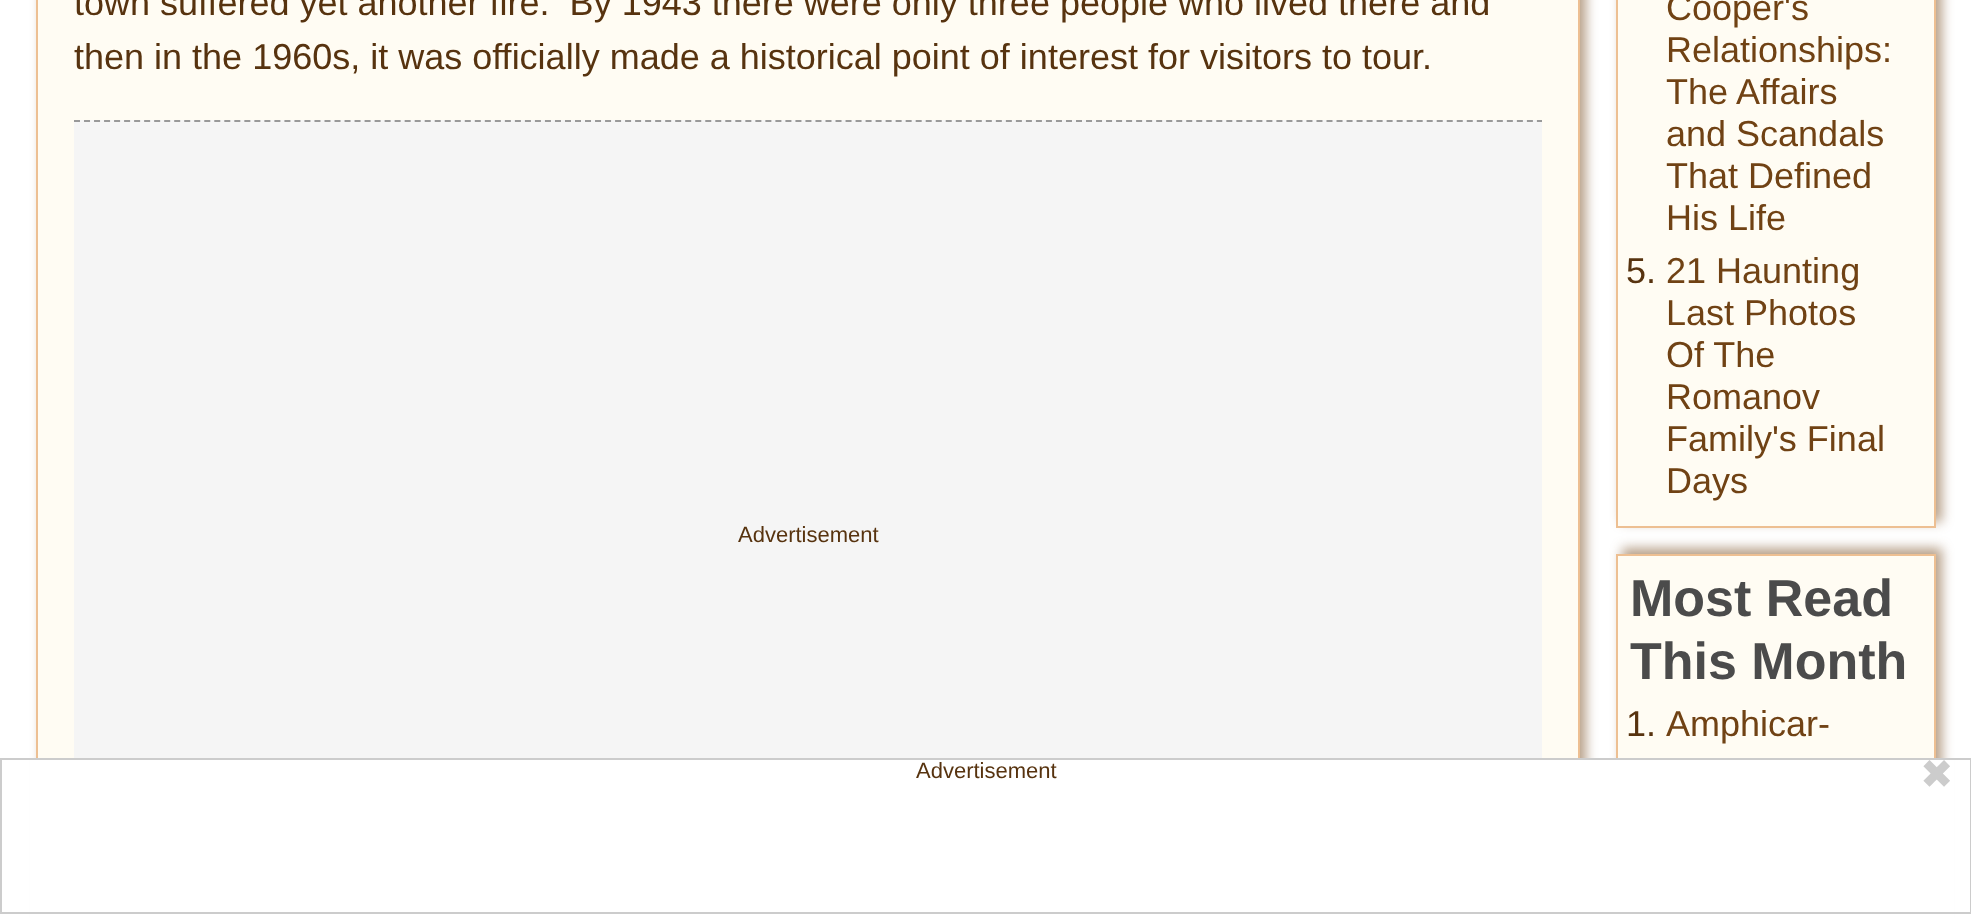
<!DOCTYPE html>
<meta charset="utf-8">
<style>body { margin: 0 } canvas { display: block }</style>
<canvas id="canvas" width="1971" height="918"></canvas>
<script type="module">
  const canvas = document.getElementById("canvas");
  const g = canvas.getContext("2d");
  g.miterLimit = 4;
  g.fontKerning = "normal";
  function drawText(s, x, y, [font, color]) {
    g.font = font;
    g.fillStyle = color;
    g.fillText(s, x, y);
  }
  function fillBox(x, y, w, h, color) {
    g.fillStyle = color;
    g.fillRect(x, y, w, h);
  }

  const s1 = ["36px Liberation Sans", "#57330F"];
  const s2 = ["22px Liberation Sans", "#57330F"];
  const s3 = ["36px Liberation Sans", "#704214"];
  const s4 = ["bold 52px Liberation Sans", "#4B4B4B"];
  const s5 = ["40px DejaVu Sans", "#CCCCCC"];

  fillBox(0, 0, 1971, 918, "#FFFFFF");
  g.fillStyle = "rgba(112, 66, 20, 0.5)";
  g.filter = "blur(6px)";
  g.beginPath();
  g.rect(42, -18, 1544, 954);
  g.fill();
  g.filter = "none";
  fillBox(38, 0, 1540, 758, "#FFFCF3");
  g.strokeStyle = "#EDBF92";
  g.lineWidth = 2;
  g.strokeRect(37, -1, 1542, 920);
  drawText("town suffered yet another fire.  By 1943 there were only three people who lived there and", 74, 15, s1);
  drawText("then in the 1960s, it was officially made a historical point of interest for visitors to tour.", 74, 69, s1);
  fillBox(74, 120, 1468, 638, "#F5F5F5");
  g.beginPath();
  g.moveTo(74, 121);
  g.lineTo(1542, 121);
  g.strokeStyle = "#999999";
  g.setLineDash([6, 4.02]);
  g.stroke();
  drawText("Advertisement", 738, 542, s2);
  g.fillStyle = "rgba(112, 66, 20, 0.5)";
  g.filter = "blur(6px)";
  g.beginPath();
  g.rect(1622, -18, 320, 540);
  g.fill();
  g.filter = "none";
  g.fillStyle = "#FFFCF3";
  g.beginPath();
  g.rect(1617, -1, 318, 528);
  g.fill();
  g.strokeStyle = "#EDBF92";
  g.setLineDash([]);
  g.stroke();
  drawText("Cooper's", 1666, 20, s3);
  drawText("Relationships:", 1666, 62, s3);
  drawText("The Affairs", 1666, 104, s3);
  drawText("and Scandals", 1666, 146, s3);
  drawText("That Defined", 1666, 188, s3);
  drawText("His Life", 1666, 230, s3);
  drawText("5.", 1626, 283, s1);
  drawText("21 Haunting", 1666, 283, s3);
  drawText("Last Photos", 1666, 325, s3);
  drawText("Of The", 1666, 367, s3);
  drawText("Romanov", 1666, 409, s3);
  drawText("Family's Final", 1666, 451, s3);
  drawText("Days", 1666, 493, s3);
  g.fillStyle = "rgba(112, 66, 20, 0.5)";
  g.filter = "blur(6px)";
  g.beginPath();
  g.rect(1622, 548, 320, 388);
  g.fill();
  g.filter = "none";
  fillBox(1618, 556, 316, 202, "#FFFCF3");
  g.strokeRect(1617, 555, 318, 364);
  drawText("Most Read", 1630, 616, s4);
  drawText("This Month", 1630, 679, s4);
  drawText("1.", 1626, 736, s1);
  drawText("Amphicar-", 1666, 736, s3);
  fillBox(30, 760, 1924, 158, "#FFFFFF");
  g.strokeStyle = "#CCCCCC";
  g.strokeRect(1, 759, 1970, 154);
  drawText("Advertisement", 916, 778, s2);
  drawText("✖", 1920, 788, s5);
</script>
